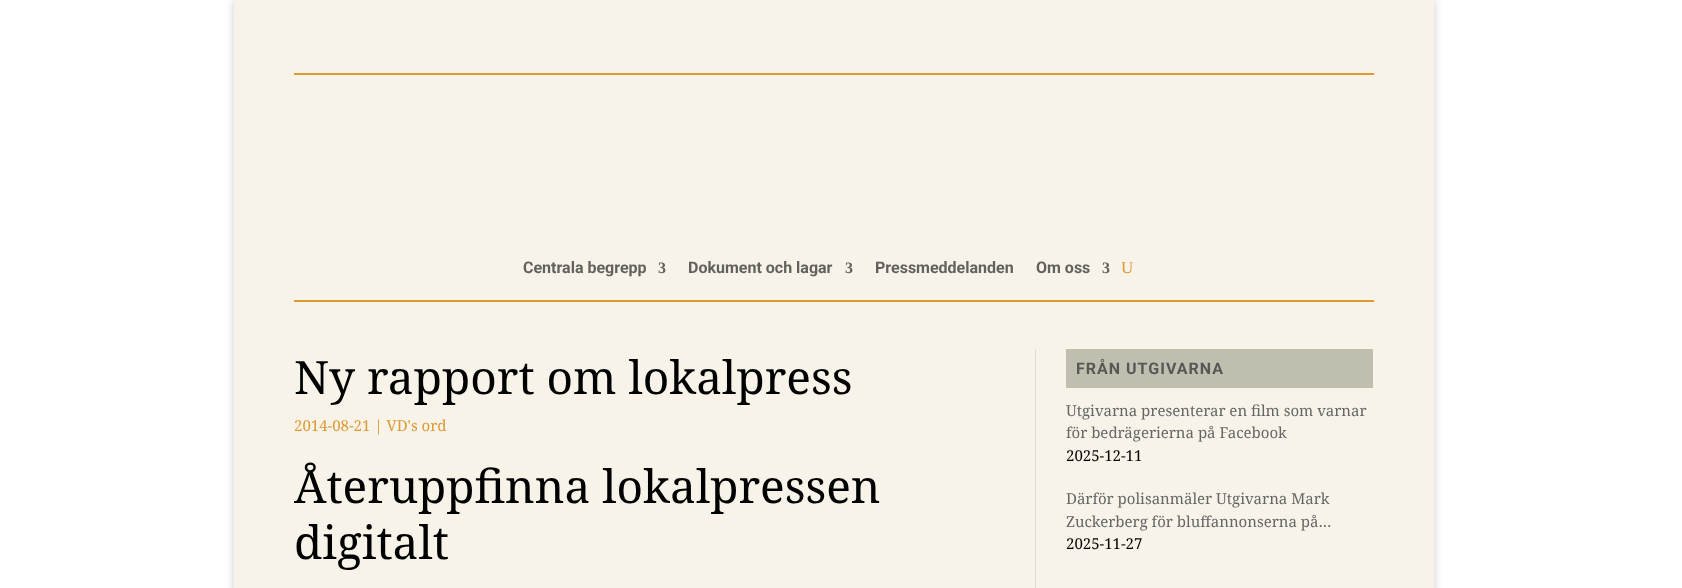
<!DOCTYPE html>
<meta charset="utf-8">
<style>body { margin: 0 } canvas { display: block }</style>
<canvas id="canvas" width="1682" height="588"></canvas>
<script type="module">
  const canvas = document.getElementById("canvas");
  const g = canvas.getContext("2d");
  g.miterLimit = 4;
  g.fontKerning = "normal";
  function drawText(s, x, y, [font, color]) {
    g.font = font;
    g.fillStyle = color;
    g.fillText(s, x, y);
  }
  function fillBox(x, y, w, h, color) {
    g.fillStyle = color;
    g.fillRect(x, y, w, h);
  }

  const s1 = ["bold 16px Roboto", "#63615D"];
  const s2 = ["bold 16px Liberation Serif", "#63615D"];
  const s3 = ["17px Liberation Serif", "#DD9933"];
  const s4 = ["46px Noto Serif", "#000000"];
  const s5 = ["15px Noto Serif", "#DD9933"];
  const s6 = ["bold 16px Roboto", "#575756"];
  const s7 = ["15px Noto Serif", "#666666"];
  const s8 = ["15px Noto Serif", "#000000"];

  fillBox(0, 0, 1682, 588, "#FFFFFF");
  g.fillStyle = "rgba(0, 0, 0, 0.2)";
  g.filter = "blur(5px)";
  g.beginPath();
  g.rect(234, 0, 1200, 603);
  g.fill();
  g.filter = "none";
  fillBox(234, 0, 1200, 588, "#F7F3E8");
  fillBox(294, 73, 1080, 2, "#DD9933");
  drawText("Centrala begrepp", 523, 273, s1);
  drawText("3", 658, 273, s2);
  drawText("Dokument och lagar", 688, 273, s1);
  drawText("3", 845, 273, s2);
  drawText("Pressmeddelanden", 875, 273, s1);
  drawText("Om oss", 1036, 273, s1);
  drawText("3", 1102, 273, s2);
  drawText("U", 1121, 273, s3);
  fillBox(294, 300, 1080, 2, "#DD9933");
  drawText("Ny rapport om lokalpress", 294, 394, s4);
  drawText("2014-08-21 | VD's ord", 294, 431, s5);
  drawText("Återuppfinna lokalpressen", 294, 503, s4);
  drawText("digitalt", 294, 559, s4);
  fillBox(1035, 349, 1, 239, "#DEDBD1");
  fillBox(1066, 349, 307, 39, "#C0BEAE");
  g.letterSpacing = "1px";
  drawText("FRÅN UTGIVARNA", 1076, 374, s6);
  g.letterSpacing = "0px";
  drawText("Utgivarna presenterar en film som varnar", 1066, 416, s7);
  drawText("för bedrägerierna på Facebook", 1066, 438, s7);
  drawText("2025-12-11", 1066, 461, s8);
  drawText("Därför polisanmäler Utgivarna Mark", 1066, 504, s7);
  drawText("Zuckerberg för bluffannonserna på…", 1066, 527, s7);
  drawText("2025-11-27", 1066, 549, s8);
</script>
